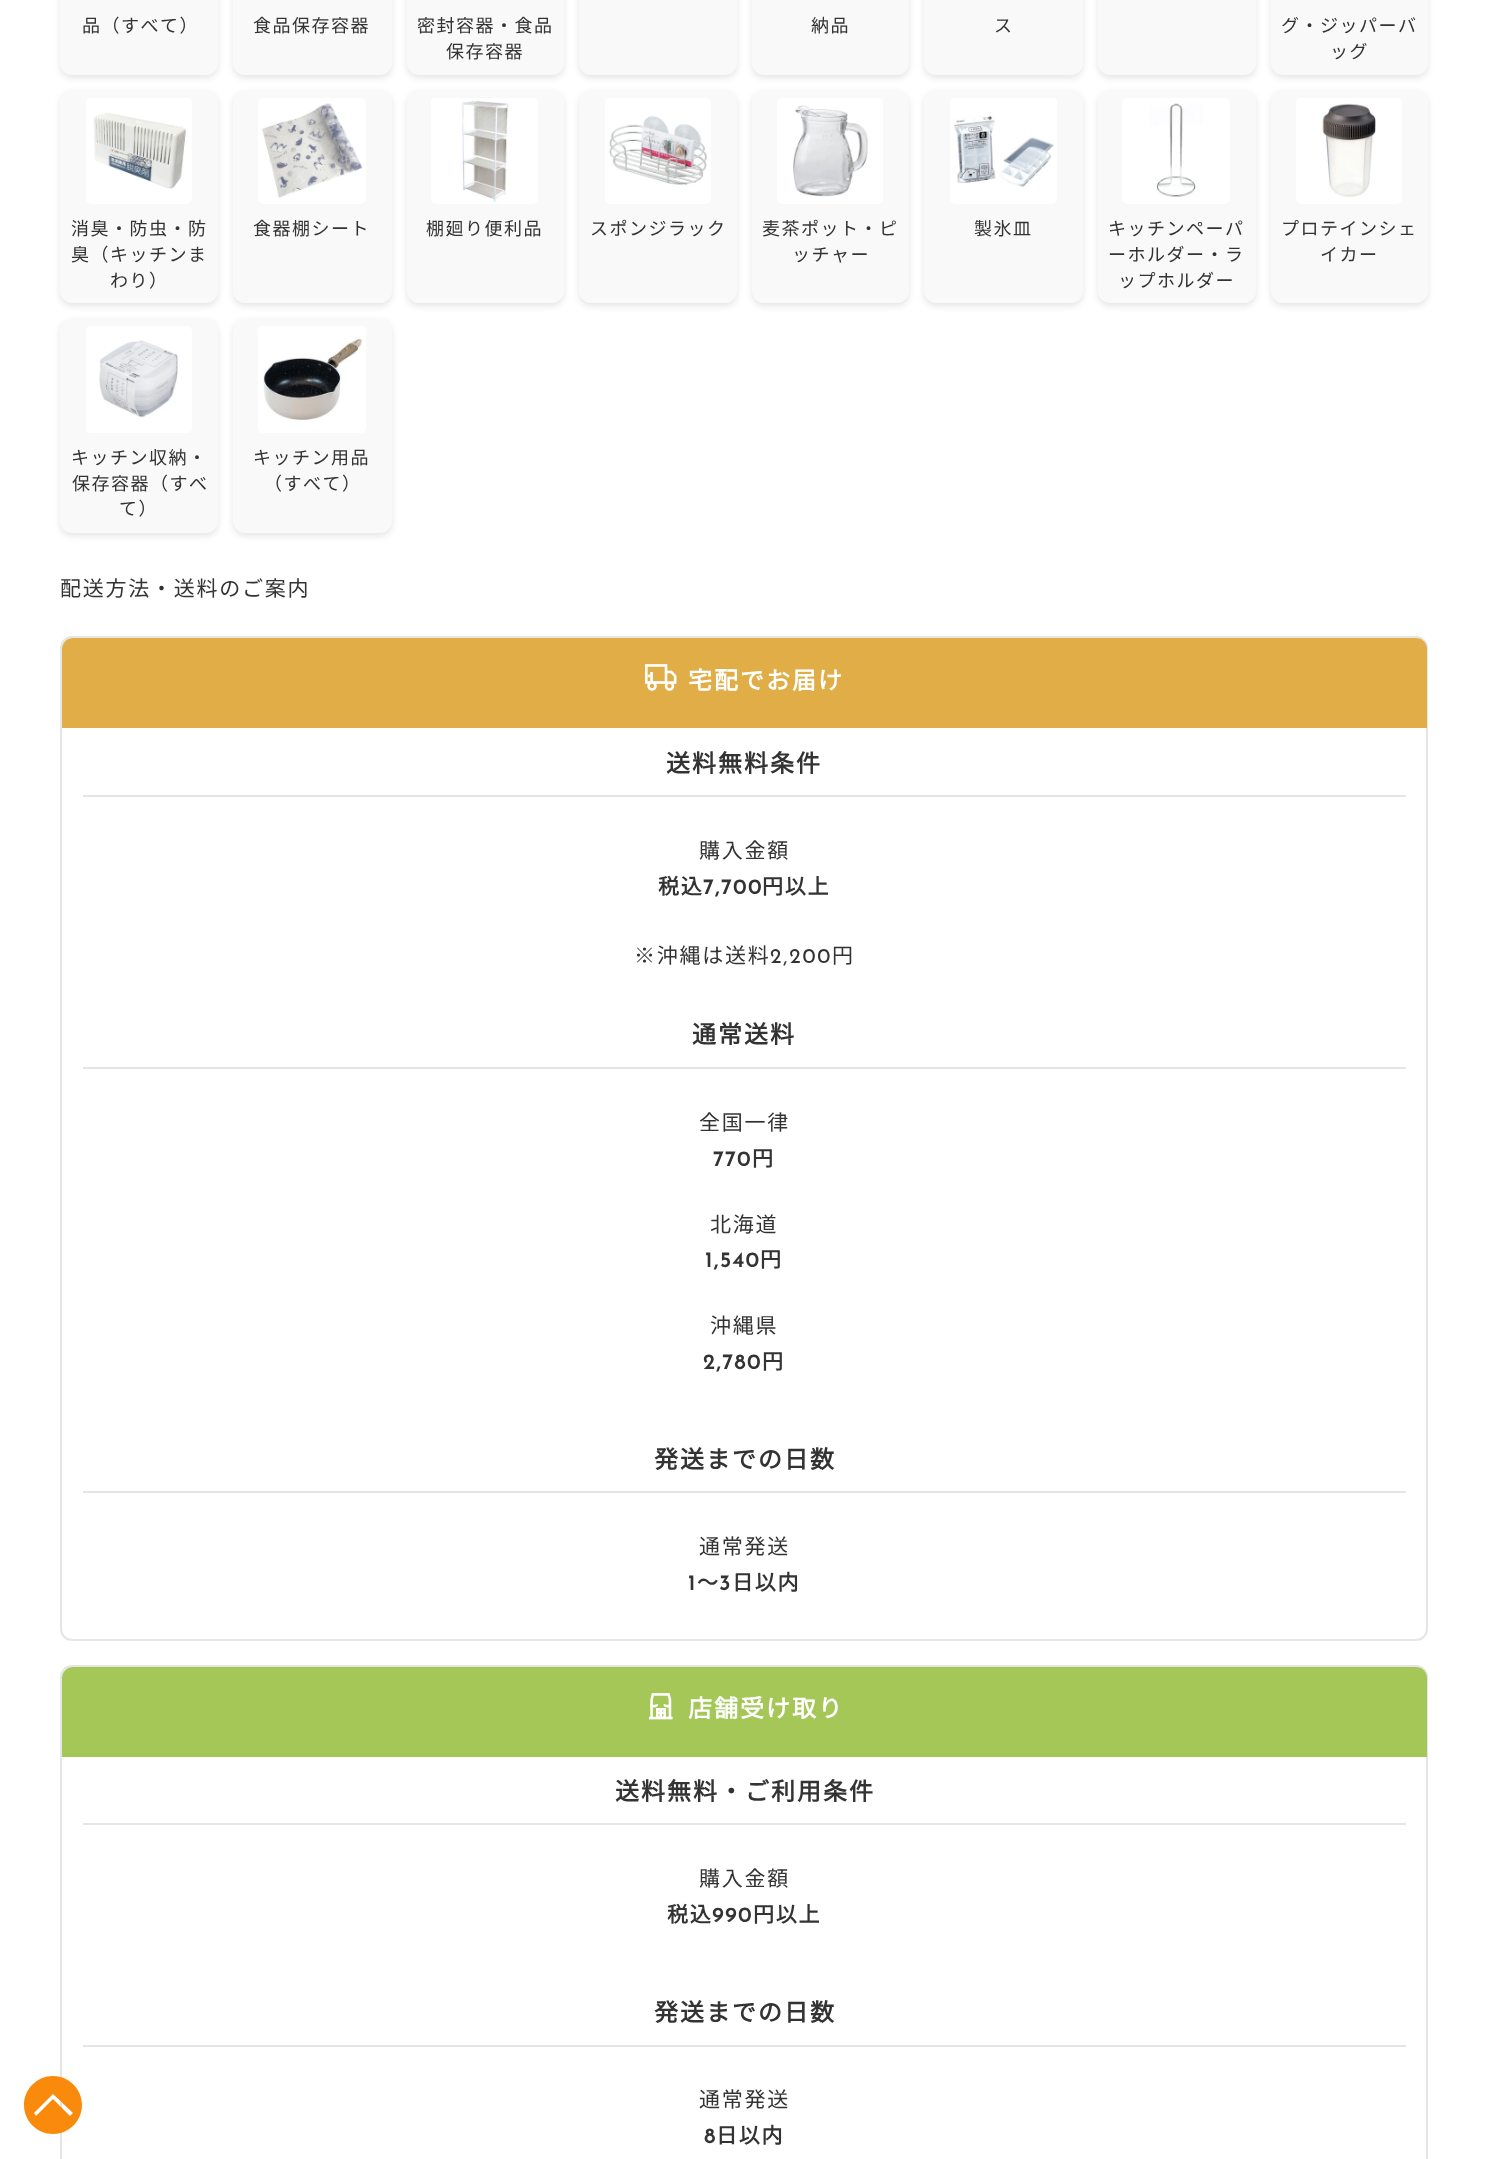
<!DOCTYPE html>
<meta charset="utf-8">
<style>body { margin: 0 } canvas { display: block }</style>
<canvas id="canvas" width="1487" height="2159"></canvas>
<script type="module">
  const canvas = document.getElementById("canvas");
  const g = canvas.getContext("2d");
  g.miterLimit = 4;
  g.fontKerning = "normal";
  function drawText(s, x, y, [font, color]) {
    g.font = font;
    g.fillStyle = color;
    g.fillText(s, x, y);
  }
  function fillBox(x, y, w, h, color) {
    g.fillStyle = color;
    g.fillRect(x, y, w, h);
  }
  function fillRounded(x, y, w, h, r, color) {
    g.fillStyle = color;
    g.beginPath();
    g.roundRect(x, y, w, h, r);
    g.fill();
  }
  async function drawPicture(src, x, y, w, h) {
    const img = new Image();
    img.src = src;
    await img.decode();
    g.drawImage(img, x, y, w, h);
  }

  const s1 = ["100 18px Noto Sans JP", "#333333"];
  const s2 = ["100 21px Noto Sans JP", "#333333"];
  const s3 = ["bold 24px Noto Sans JP", "#FFFFFF"];
  const s4 = ["bold 24px Noto Sans JP", "#333333"];
  const s5 = ["bold 21px Noto Sans JP", "#333333"];
  const s6 = ["bold 21px Josefin Sans", "#333333"];
  const s7 = ["21px Josefin Sans", "#333333"];

  fillBox(0, 0, 1487, 2159, "#FFFFFF");
  g.beginPath();
  g.roundRect(61, 1666, 1366, 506, 11);
  g.strokeStyle = "#E5E5E5";
  g.lineWidth = 2;
  g.stroke();
  g.fillStyle = "#F98A0B";
  g.beginPath();
  g.moveTo(53, 2076);
  g.bezierCurveTo(37, 2076, 24, 2089, 24, 2105);
  g.bezierCurveTo(24, 2121, 37, 2134, 53, 2134);
  g.bezierCurveTo(69, 2134, 82, 2121, 82, 2105);
  g.bezierCurveTo(82, 2089, 69, 2076, 53, 2076);
  g.closePath();
  g.moveTo(70, 2116);
  g.lineTo(53, 2099);
  g.lineTo(36, 2116);
  g.lineTo(34, 2113);
  g.lineTo(53, 2094);
  g.lineTo(73, 2113);
  g.closePath();
  g.fill("evenodd");
  g.fillStyle = "rgba(0, 0, 0, 0.1)";
  g.filter = "blur(3px)";
  g.beginPath();
  g.roundRect(60, -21, 158, 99, 12);
  g.fill();
  g.filter = "none";
  fillRounded(60, -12, 158, 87, 12, "#F9F9F9");
  g.letterSpacing = "1.5px";
  drawText("品（すべて）", 82, 32, s1);
  g.fillStyle = "rgba(0, 0, 0, 0.1)";
  g.filter = "blur(3px)";
  g.beginPath();
  g.roundRect(233, -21, 159, 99, 12);
  g.fill();
  g.filter = "none";
  fillRounded(233, -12, 159, 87, 12, "#F9F9F9");
  drawText("食品保存容器", 253, 32, s1);
  g.fillStyle = "rgba(0, 0, 0, 0.1)";
  g.filter = "blur(3px)";
  g.beginPath();
  g.roundRect(407, -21, 157, 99, 12);
  g.fill();
  g.filter = "none";
  fillRounded(407, -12, 157, 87, 12, "#F9F9F9");
  drawText("密封容器・食品", 417, 32, s1);
  drawText("保存容器", 446, 58, s1);
  g.fillStyle = "rgba(0, 0, 0, 0.1)";
  g.filter = "blur(3px)";
  g.beginPath();
  g.roundRect(579, -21, 158, 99, 12);
  g.fill();
  g.filter = "none";
  fillRounded(579, -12, 158, 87, 12, "#F9F9F9");
  g.fillStyle = "rgba(0, 0, 0, 0.1)";
  g.filter = "blur(3px)";
  g.beginPath();
  g.roundRect(752, -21, 157, 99, 12);
  g.fill();
  g.filter = "none";
  fillRounded(752, -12, 157, 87, 12, "#F9F9F9");
  drawText("納品", 811, 32, s1);
  g.fillStyle = "rgba(0, 0, 0, 0.1)";
  g.filter = "blur(3px)";
  g.beginPath();
  g.roundRect(924, -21, 159, 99, 12);
  g.fill();
  g.filter = "none";
  fillRounded(924, -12, 159, 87, 12, "#F9F9F9");
  drawText("ス", 994, 32, s1);
  g.fillStyle = "rgba(0, 0, 0, 0.1)";
  g.filter = "blur(3px)";
  g.beginPath();
  g.roundRect(1098, -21, 158, 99, 12);
  g.fill();
  g.filter = "none";
  fillRounded(1098, -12, 158, 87, 12, "#F9F9F9");
  g.fillStyle = "rgba(0, 0, 0, 0.1)";
  g.filter = "blur(3px)";
  g.beginPath();
  g.roundRect(1271, -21, 157, 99, 12);
  g.fill();
  g.filter = "none";
  fillRounded(1271, -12, 157, 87, 12, "#F9F9F9");
  drawText("グ・ジッパーバ", 1281, 32, s1);
  drawText("ッグ", 1330, 58, s1);
  g.fillStyle = "rgba(0, 0, 0, 0.1)";
  g.filter = "blur(3px)";
  g.beginPath();
  g.roundRect(60, 93, 158, 213, 12);
  g.fill();
  g.filter = "none";
  fillRounded(60, 90, 158, 213, 12, "#F9F9F9");
  await drawPicture("pic1.png", 86, 98, 106, 106);
  drawText("消臭・防虫・防", 71, 235, s1);
  drawText("臭（キッチンま", 71, 261, s1);
  drawText("わり）", 110, 287, s1);
  g.fillStyle = "rgba(0, 0, 0, 0.1)";
  g.filter = "blur(3px)";
  g.beginPath();
  g.roundRect(233, 93, 159, 213, 12);
  g.fill();
  g.filter = "none";
  fillRounded(233, 90, 159, 213, 12, "#F9F9F9");
  await drawPicture("pic2.png", 258, 98, 108, 106);
  drawText("食器棚シート", 253, 235, s1);
  g.fillStyle = "rgba(0, 0, 0, 0.1)";
  g.filter = "blur(3px)";
  g.beginPath();
  g.roundRect(407, 93, 157, 213, 12);
  g.fill();
  g.filter = "none";
  fillRounded(407, 90, 157, 213, 12, "#F9F9F9");
  await drawPicture("pic3.png", 431, 98, 107, 106);
  drawText("棚廻り便利品", 426, 235, s1);
  g.fillStyle = "rgba(0, 0, 0, 0.1)";
  g.filter = "blur(3px)";
  g.beginPath();
  g.roundRect(579, 93, 158, 213, 12);
  g.fill();
  g.filter = "none";
  fillRounded(579, 90, 158, 213, 12, "#F9F9F9");
  await drawPicture("pic4.png", 605, 98, 106, 106);
  drawText("スポンジラック", 590, 235, s1);
  g.fillStyle = "rgba(0, 0, 0, 0.1)";
  g.filter = "blur(3px)";
  g.beginPath();
  g.roundRect(752, 93, 157, 213, 12);
  g.fill();
  g.filter = "none";
  fillRounded(752, 90, 157, 213, 12, "#F9F9F9");
  await drawPicture("pic5.png", 777, 98, 106, 106);
  drawText("麦茶ポット・ピ", 762, 235, s1);
  drawText("ッチャー", 792, 261, s1);
  g.fillStyle = "rgba(0, 0, 0, 0.1)";
  g.filter = "blur(3px)";
  g.beginPath();
  g.roundRect(924, 93, 159, 213, 12);
  g.fill();
  g.filter = "none";
  fillRounded(924, 90, 159, 213, 12, "#F9F9F9");
  await drawPicture("pic6.png", 950, 98, 107, 106);
  drawText("製氷皿", 974, 235, s1);
  g.fillStyle = "rgba(0, 0, 0, 0.1)";
  g.filter = "blur(3px)";
  g.beginPath();
  g.roundRect(1098, 93, 158, 213, 12);
  g.fill();
  g.filter = "none";
  fillRounded(1098, 90, 158, 213, 12, "#F9F9F9");
  await drawPicture("pic7.png", 1122, 98, 108, 106);
  drawText("キッチンペーパ", 1108, 235, s1);
  drawText("ーホルダー・ラ", 1108, 261, s1);
  drawText("ップホルダー", 1118, 287, s1);
  g.fillStyle = "rgba(0, 0, 0, 0.1)";
  g.filter = "blur(3px)";
  g.beginPath();
  g.roundRect(1271, 93, 157, 213, 12);
  g.fill();
  g.filter = "none";
  fillRounded(1271, 90, 157, 213, 12, "#F9F9F9");
  await drawPicture("pic8.png", 1296, 98, 106, 106);
  drawText("プロテインシェ", 1281, 235, s1);
  drawText("イカー", 1320, 261, s1);
  g.fillStyle = "rgba(0, 0, 0, 0.1)";
  g.filter = "blur(3px)";
  g.beginPath();
  g.roundRect(60, 321, 158, 215, 12);
  g.fill();
  g.filter = "none";
  fillRounded(60, 318, 158, 215, 12, "#F9F9F9");
  await drawPicture("pic9.png", 86, 326, 106, 107);
  drawText("キッチン収納・", 71, 464, s1);
  drawText("保存容器（すべ", 72, 490, s1);
  drawText("て）", 119, 515, s1);
  g.fillStyle = "rgba(0, 0, 0, 0.1)";
  g.filter = "blur(3px)";
  g.beginPath();
  g.roundRect(233, 321, 159, 215, 12);
  g.fill();
  g.filter = "none";
  fillRounded(233, 318, 159, 215, 12, "#F9F9F9");
  await drawPicture("pic10.png", 258, 326, 108, 107);
  drawText("キッチン用品", 253, 464, s1);
  drawText("（すべて）", 264, 490, s1);
  g.letterSpacing = "1.75px";
  drawText("配送方法・送料のご案内", 60, 596, s2);
  g.beginPath();
  g.roundRect(61, 637, 1366, 1003, 11);
  g.stroke();
  g.fillStyle = "#E0AD47";
  g.beginPath();
  g.roundRect(62, 638, 1365, 90, [11, 11, 0, 0]);
  g.fill();
  await drawPicture("pic11.png", 645, 664, 32, 27);
  g.letterSpacing = "2px";
  drawText("宅配でお届け", 688, 689, s3);
  fillBox(83, 795, 1323, 2, "#E5E5E5");
  drawText("送料無料条件", 666, 772, s4);
  g.letterSpacing = "1.75px";
  drawText("購入金額", 699, 858, s2);
  drawText("税込", 658, 894, s5);
  drawText("7,700", 703, 894, s6);
  drawText("円以上", 762, 894, s5);
  drawText("※沖縄は送料", 634, 963, s2);
  drawText("2,200", 770, 963, s7);
  drawText("円", 832, 963, s2);
  fillBox(83, 1067, 1323, 2, "#E5E5E5");
  g.letterSpacing = "2px";
  drawText("通常送料", 692, 1043, s4);
  g.letterSpacing = "1.75px";
  drawText("全国一律", 699, 1130, s2);
  drawText("770", 713, 1166, s6);
  drawText("円", 752, 1166, s5);
  drawText("北海道", 710, 1232, s2);
  drawText("1,540", 705, 1267, s6);
  drawText("円", 760, 1267, s5);
  drawText("沖縄県", 710, 1333, s2);
  drawText("2,780", 703, 1369, s6);
  drawText("円", 762, 1369, s5);
  fillBox(83, 1491, 1323, 2, "#E5E5E5");
  g.letterSpacing = "2px";
  drawText("発送までの日数", 654, 1468, s4);
  g.letterSpacing = "1.75px";
  drawText("通常発送", 699, 1554, s2);
  drawText("1", 688, 1590, s6);
  drawText("〜", 697, 1590, s5);
  drawText("3", 719, 1590, s6);
  drawText("日以内", 732, 1590, s5);
  g.fillStyle = "#A4C757";
  g.beginPath();
  g.roundRect(62, 1667, 1365, 90, [11, 11, 0, 0]);
  g.fill();
  await drawPicture("pic12.png", 648, 1693, 25, 27);
  g.letterSpacing = "2px";
  drawText("店舗受け取り", 688, 1717, s3);
  fillBox(83, 1823, 1323, 2, "#E5E5E5");
  drawText("送料無料・ご利用条件", 615, 1800, s4);
  g.letterSpacing = "1.75px";
  drawText("購入金額", 699, 1886, s2);
  drawText("税込", 667, 1922, s5);
  drawText("990", 712, 1922, s6);
  drawText("円以上", 753, 1922, s5);
  fillBox(83, 2045, 1323, 2, "#E5E5E5");
  g.letterSpacing = "2px";
  drawText("発送までの日数", 654, 2021, s4);
  g.letterSpacing = "1.75px";
  drawText("通常発送", 699, 2107, s2);
  drawText("8", 704, 2143, s6);
  drawText("日以内", 716, 2143, s5);
</script>
